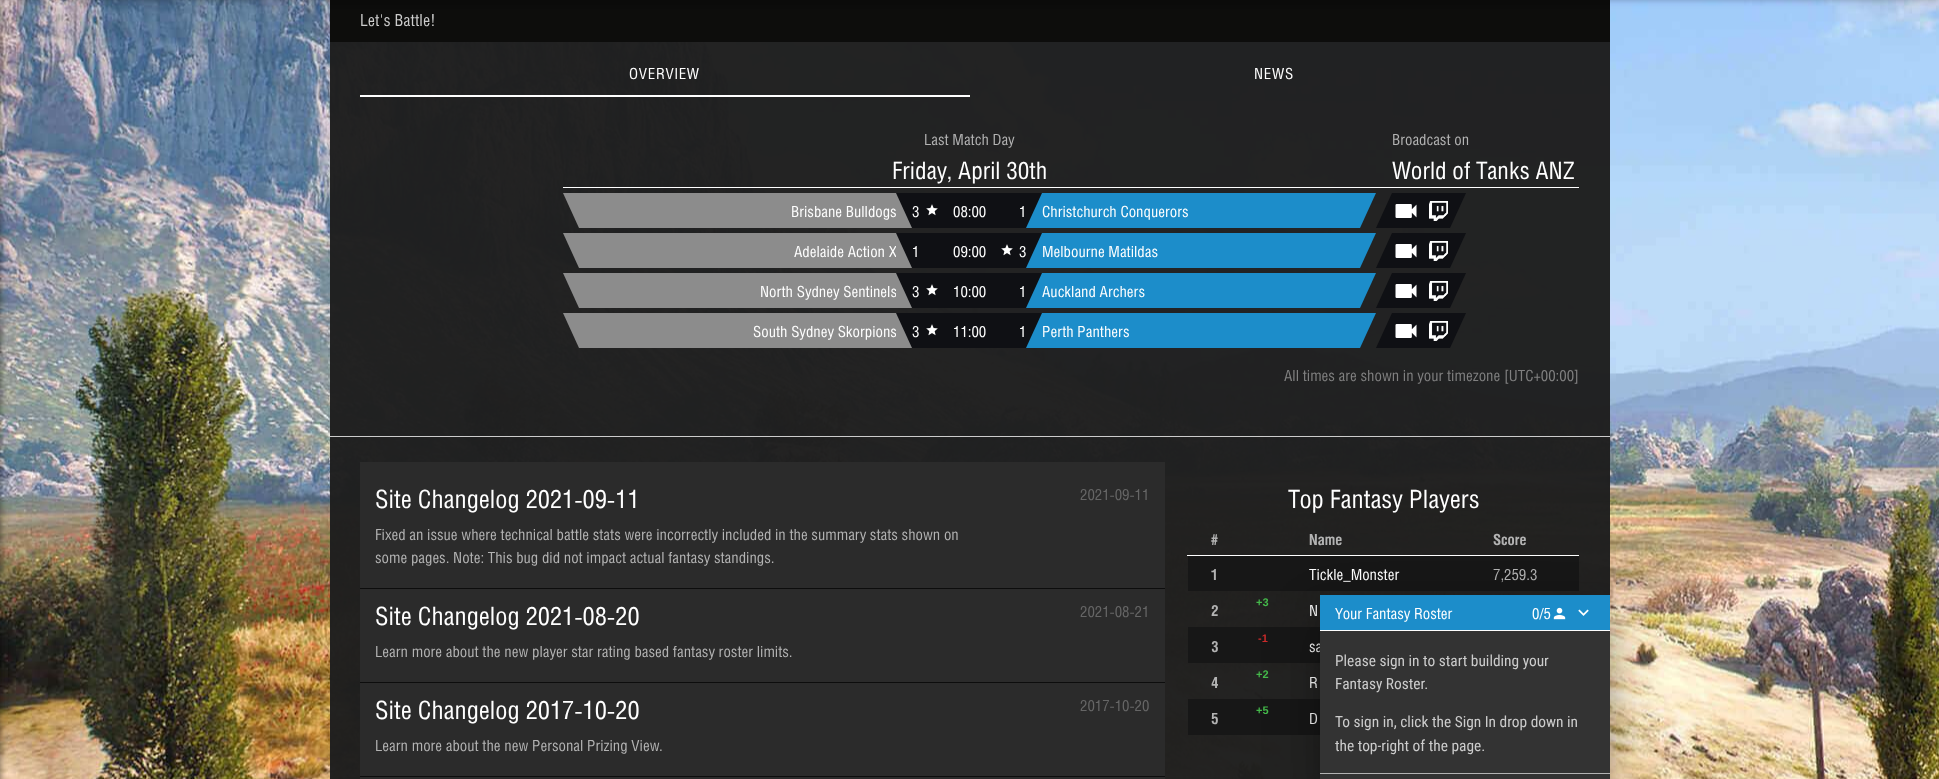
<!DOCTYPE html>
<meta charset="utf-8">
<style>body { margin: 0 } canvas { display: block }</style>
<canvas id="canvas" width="1939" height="779"></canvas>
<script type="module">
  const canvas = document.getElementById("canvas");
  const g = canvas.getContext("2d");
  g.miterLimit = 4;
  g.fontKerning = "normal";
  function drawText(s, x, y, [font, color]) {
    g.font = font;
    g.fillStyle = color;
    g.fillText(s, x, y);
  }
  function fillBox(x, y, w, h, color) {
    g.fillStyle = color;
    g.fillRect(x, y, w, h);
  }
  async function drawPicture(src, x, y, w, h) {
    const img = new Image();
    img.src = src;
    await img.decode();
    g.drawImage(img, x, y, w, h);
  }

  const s1 = ["16.5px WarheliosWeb", "#CCCCCC"];
  const s2 = ["15.4px WarheliosWeb", "#FFFFFF"];
  const s3 = ["15.4px WarheliosWeb", "#B3B3B3"];
  const s4 = ["24px WarheliosWeb", "#FFFFFF"];
  const s5 = ["15.4px WarheliosWeb", "#808080"];
  const s6 = ["25.25px WarheliosWeb", "#FFFFFF"];
  const s7 = ["15.4px WarheliosWeb", "#666666"];
  const s8 = ["bold 15.4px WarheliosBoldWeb", "#B3B3B3"];
  const s9 = ["bold 11px Liberation Sans", "#45BA4B"];
  const s10 = ["bold 11px Liberation Sans", "#CA2B2B"];
  const s11 = ["15.4px Roboto Condensed", "#CCCCCC"];

  fillBox(0, 0, 1939, 779, "#FFFFFF");
  await drawPicture("pic1.png", 0, 0, 1939, 779);
  fillBox(330, 0, 1280, 42, "#0D0D0C");
  g.fillStyle = "rgba(0, 0, 0, 0.12)";
  g.filter = "blur(5px)";
  g.beginPath();
  g.rect(0, -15, 1939, 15);
  g.fill();
  g.filter = "none";
  g.fillStyle = "rgba(0, 0, 0, 0.16)";
  g.filter = "blur(2.5px)";
  g.beginPath();
  g.rect(0, -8, 1939, 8);
  g.fill();
  g.filter = "none";
  g.fillStyle = "rgba(0, 0, 0, 0.12)";
  g.filter = "blur(5px)";
  g.beginPath();
  g.rect(-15, 2, 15, 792);
  g.fill();
  g.filter = "none";
  g.fillStyle = "rgba(0, 0, 0, 0.16)";
  g.filter = "blur(2.5px)";
  g.beginPath();
  g.rect(-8, 2, 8, 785);
  g.fill();
  g.filter = "none";
  g.fillStyle = "rgba(0, 0, 0, 0.12)";
  g.filter = "blur(5px)";
  g.beginPath();
  g.rect(-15, 2, 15, 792);
  g.fill();
  g.filter = "none";
  g.fillStyle = "rgba(0, 0, 0, 0.16)";
  g.filter = "blur(2.5px)";
  g.beginPath();
  g.rect(-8, 2, 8, 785);
  g.fill();
  g.filter = "none";
  fillBox(330, 42, 1280, 737, "rgba(31, 31, 31, 0.98)");
  drawText("Let's Battle!", 360, 26, s1);
  g.letterSpacing = "0.75px";
  drawText("OVERVIEW", 629, 79, s2);
  drawText("NEWS", 1254, 79, s2);
  fillBox(360, 95, 610, 2, "#FFFFFF");
  g.letterSpacing = "0px";
  drawText("Last Match Day", 924, 145, s3);
  drawText("Broadcast on", 1392, 145, s3);
  fillBox(563, 187, 1016, 1, "#FFFFFF");
  drawText("Friday, April 30th", 892, 179, s4);
  drawText("World of Tanks ANZ", 1392, 179, s4);
  g.fillStyle = "#8C8C8C";
  g.beginPath();
  g.moveTo(563, 193);
  g.lineTo(579, 193);
  g.lineTo(579, 228);
  g.closePath();
  g.fill();
  fillBox(579, 193, 317, 35, "#8C8C8C");
  drawText("Brisbane Bulldogs", 791, 217, s2);
  fillBox(896, 193, 146, 35, "#0F1014");
  g.fillStyle = "#8C8C8C";
  g.beginPath();
  g.moveTo(912, 228);
  g.lineTo(896, 228);
  g.lineTo(896, 193);
  g.closePath();
  g.fill();
  drawText("3", 912, 217, s2);
  await drawPicture("pic2.png", 926, 204, 12, 12);
  drawText("08:00", 953, 217, s2);
  drawText("1", 1019, 217, s2);
  g.fillStyle = "#1C8DCA";
  g.beginPath();
  g.moveTo(1042, 228);
  g.lineTo(1026, 228);
  g.lineTo(1042, 193);
  g.closePath();
  g.fill();
  fillBox(1042, 193, 318, 35, "#1C8DCA");
  drawText("Christchurch Conquerors", 1042, 217, s2);
  g.fillStyle = "#1C8DCA";
  g.beginPath();
  g.moveTo(1360, 193);
  g.lineTo(1376, 193);
  g.lineTo(1360, 228);
  g.closePath();
  g.fill();
  g.fillStyle = "#0F1014";
  g.beginPath();
  g.moveTo(1392, 228);
  g.lineTo(1376, 228);
  g.lineTo(1392, 193);
  g.closePath();
  g.fill();
  fillBox(1392, 193, 58, 35, "#0F1014");
  await drawPicture("pic3.png", 1395, 204, 22, 14);
  await drawPicture("pic4.png", 1429, 201, 19, 20);
  g.beginPath();
  g.moveTo(1450, 193);
  g.lineTo(1466, 193);
  g.lineTo(1450, 228);
  g.closePath();
  g.fill();
  g.fillStyle = "#8C8C8C";
  g.beginPath();
  g.moveTo(563, 233);
  g.lineTo(579, 233);
  g.lineTo(579, 268);
  g.closePath();
  g.fill();
  fillBox(579, 233, 317, 35, "#8C8C8C");
  drawText("Adelaide Action X", 794, 257, s2);
  fillBox(896, 233, 16, 35, "#0F1014");
  g.fillStyle = "#8C8C8C";
  g.beginPath();
  g.moveTo(912, 268);
  g.lineTo(896, 268);
  g.lineTo(896, 233);
  g.closePath();
  g.fill();
  fillBox(912, 233, 130, 35, "#0F1014");
  drawText("1", 912, 257, s2);
  drawText("09:00", 953, 257, s2);
  await drawPicture("pic2.png", 1001, 244, 12, 12);
  drawText("3", 1019, 257, s2);
  g.fillStyle = "#1C8DCA";
  g.beginPath();
  g.moveTo(1042, 268);
  g.lineTo(1026, 268);
  g.lineTo(1042, 233);
  g.closePath();
  g.fill();
  fillBox(1042, 233, 318, 35, "#1C8DCA");
  drawText("Melbourne Matildas", 1042, 257, s2);
  g.fillStyle = "#1C8DCA";
  g.beginPath();
  g.moveTo(1360, 233);
  g.lineTo(1376, 233);
  g.lineTo(1360, 268);
  g.closePath();
  g.fill();
  g.fillStyle = "#0F1014";
  g.beginPath();
  g.moveTo(1392, 268);
  g.lineTo(1376, 268);
  g.lineTo(1392, 233);
  g.closePath();
  g.fill();
  fillBox(1392, 233, 58, 35, "#0F1014");
  await drawPicture("pic3.png", 1395, 244, 22, 14);
  await drawPicture("pic5.png", 1429, 241, 19, 20);
  g.beginPath();
  g.moveTo(1450, 233);
  g.lineTo(1466, 233);
  g.lineTo(1450, 268);
  g.closePath();
  g.fill();
  g.fillStyle = "#8C8C8C";
  g.beginPath();
  g.moveTo(563, 273);
  g.lineTo(579, 273);
  g.lineTo(579, 308);
  g.closePath();
  g.fill();
  fillBox(579, 273, 317, 35, "#8C8C8C");
  drawText("North Sydney Sentinels", 760, 297, s2);
  fillBox(896, 273, 146, 35, "#0F1014");
  g.fillStyle = "#8C8C8C";
  g.beginPath();
  g.moveTo(912, 308);
  g.lineTo(896, 308);
  g.lineTo(896, 273);
  g.closePath();
  g.fill();
  drawText("3", 912, 297, s2);
  await drawPicture("pic2.png", 926, 284, 12, 12);
  drawText("10:00", 953, 297, s2);
  drawText("1", 1019, 297, s2);
  g.fillStyle = "#1C8DCA";
  g.beginPath();
  g.moveTo(1042, 308);
  g.lineTo(1026, 308);
  g.lineTo(1042, 273);
  g.closePath();
  g.fill();
  fillBox(1042, 273, 318, 35, "#1C8DCA");
  drawText("Auckland Archers", 1042, 297, s2);
  g.fillStyle = "#1C8DCA";
  g.beginPath();
  g.moveTo(1360, 273);
  g.lineTo(1376, 273);
  g.lineTo(1360, 308);
  g.closePath();
  g.fill();
  g.fillStyle = "#0F1014";
  g.beginPath();
  g.moveTo(1392, 308);
  g.lineTo(1376, 308);
  g.lineTo(1392, 273);
  g.closePath();
  g.fill();
  fillBox(1392, 273, 58, 35, "#0F1014");
  await drawPicture("pic3.png", 1395, 284, 22, 14);
  await drawPicture("pic4.png", 1429, 281, 19, 20);
  g.beginPath();
  g.moveTo(1450, 273);
  g.lineTo(1466, 273);
  g.lineTo(1450, 308);
  g.closePath();
  g.fill();
  g.fillStyle = "#8C8C8C";
  g.beginPath();
  g.moveTo(563, 313);
  g.lineTo(579, 313);
  g.lineTo(579, 348);
  g.closePath();
  g.fill();
  fillBox(579, 313, 317, 35, "#8C8C8C");
  drawText("South Sydney Skorpions", 753, 337, s2);
  fillBox(896, 313, 146, 35, "#0F1014");
  g.fillStyle = "#8C8C8C";
  g.beginPath();
  g.moveTo(912, 348);
  g.lineTo(896, 348);
  g.lineTo(896, 313);
  g.closePath();
  g.fill();
  drawText("3", 912, 337, s2);
  await drawPicture("pic2.png", 926, 324, 12, 12);
  drawText("11:00", 953, 337, s2);
  drawText("1", 1019, 337, s2);
  g.fillStyle = "#1C8DCA";
  g.beginPath();
  g.moveTo(1042, 348);
  g.lineTo(1026, 348);
  g.lineTo(1042, 313);
  g.closePath();
  g.fill();
  fillBox(1042, 313, 318, 35, "#1C8DCA");
  drawText("Perth Panthers", 1042, 337, s2);
  g.fillStyle = "#1C8DCA";
  g.beginPath();
  g.moveTo(1360, 313);
  g.lineTo(1376, 313);
  g.lineTo(1360, 348);
  g.closePath();
  g.fill();
  g.fillStyle = "#0F1014";
  g.beginPath();
  g.moveTo(1392, 348);
  g.lineTo(1376, 348);
  g.lineTo(1392, 313);
  g.closePath();
  g.fill();
  fillBox(1392, 313, 58, 35, "#0F1014");
  await drawPicture("pic3.png", 1395, 324, 22, 14);
  await drawPicture("pic4.png", 1429, 321, 19, 20);
  g.beginPath();
  g.moveTo(1450, 313);
  g.lineTo(1466, 313);
  g.lineTo(1450, 348);
  g.closePath();
  g.fill();
  drawText("All times are shown in your timezone [UTC+00:00]", 1284, 381, s5);
  fillBox(330, 436, 1280, 1, "#CCCCCC");
  fillBox(360, 462, 805, 317, "#2B2B2B");
  drawText("Site Changelog 2021-09-11", 375, 508, s6);
  drawText("2021-09-11", 1080, 500, s7);
  drawText("Fixed an issue where technical battle stats were incorrectly included in the summary stats shown on", 375, 540, s3);
  drawText("some pages. Note: This bug did not impact actual fantasy standings.", 375, 563, s3);
  fillBox(360, 588, 805, 1, "#0D0D0D");
  drawText("Site Changelog 2021-08-20", 375, 625, s6);
  drawText("2021-08-21", 1080, 617, s7);
  drawText("Learn more about the new player star rating based fantasy roster limits.", 375, 657, s3);
  fillBox(360, 682, 805, 1, "#0D0D0D");
  drawText("Site Changelog 2017-10-20", 375, 719, s6);
  drawText("2017-10-20", 1080, 711, s7);
  drawText("Learn more about the new Personal Prizing View.", 375, 751, s3);
  fillBox(360, 776, 805, 1, "#0D0D0D");
  drawText("Top Fantasy Players", 1288, 508, s6);
  fillBox(1187, 555, 392, 1, "#FFFFFF");
  drawText("#", 1211, 545, s8);
  drawText("Name", 1309, 545, s8);
  drawText("Score", 1493, 545, s8);
  fillBox(1188, 556, 391, 35, "#171717");
  drawText("1", 1211, 580, s8);
  drawText("Tickle_Monster", 1309, 580, s2);
  drawText("7,259.3", 1493, 580, s3);
  drawText("+3", 1256, 606, s9);
  drawText("2", 1211, 616, s8);
  drawText("N", 1309, 616, s2);
  fillBox(1188, 627, 132, 36, "#171717");
  drawText("-1", 1258, 642, s10);
  drawText("3", 1211, 652, s8);
  drawText("sa", 1309, 652, s2);
  drawText("+2", 1256, 678, s9);
  drawText("4", 1211, 688, s8);
  drawText("R", 1309, 688, s2);
  fillBox(1188, 699, 132, 36, "#171717");
  drawText("+5", 1256, 714, s9);
  drawText("5", 1211, 724, s8);
  drawText("D", 1309, 724, s2);
  g.fillStyle = "rgba(0, 0, 0, 0.21)";
  g.filter = "blur(27.5px)";
  g.beginPath();
  g.rect(1320, 620, 290, 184);
  g.fill();
  g.filter = "none";
  g.fillStyle = "rgba(0, 0, 0, 0.22)";
  g.filter = "blur(14px)";
  g.beginPath();
  g.rect(1320, 611, 290, 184);
  g.fill();
  g.filter = "none";
  fillBox(1320, 631, 290, 148, "#333333");
  fillBox(1320, 595, 290, 35, "#1C8DCA");
  drawText("Your Fantasy Roster", 1335, 619, s2);
  drawText("0/5", 1532, 619, s2);
  await drawPicture("pic6.png", 1553, 607, 13, 13);
  await drawPicture("pic7.png", 1578, 609, 11, 7);
  fillBox(1320, 630, 290, 1, "#FFFFFF");
  drawText("Please sign in to start building your", 1335, 666, s11);
  drawText("Fantasy Roster.", 1335, 689, s11);
  drawText("To sign in, click the Sign In drop down in", 1335, 727, s11);
  drawText("the top-right of the page.", 1335, 751, s11);
  fillBox(1320, 773, 290, 1, "#B3B3B3");
</script>
